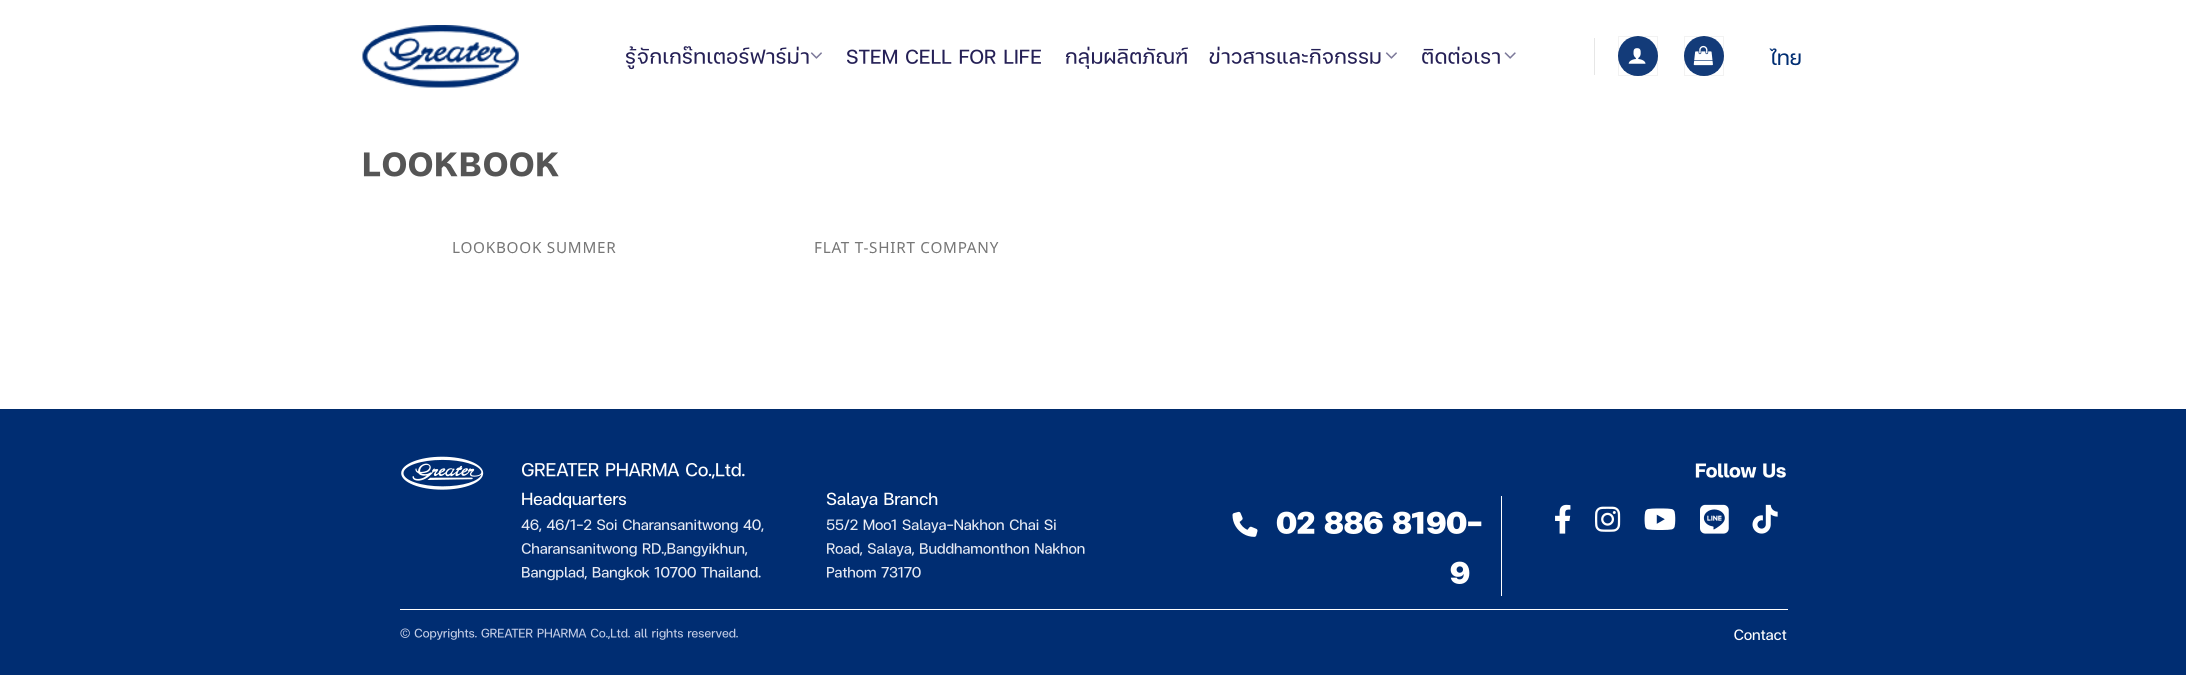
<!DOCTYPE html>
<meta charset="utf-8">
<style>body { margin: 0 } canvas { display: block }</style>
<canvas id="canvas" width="2186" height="675"></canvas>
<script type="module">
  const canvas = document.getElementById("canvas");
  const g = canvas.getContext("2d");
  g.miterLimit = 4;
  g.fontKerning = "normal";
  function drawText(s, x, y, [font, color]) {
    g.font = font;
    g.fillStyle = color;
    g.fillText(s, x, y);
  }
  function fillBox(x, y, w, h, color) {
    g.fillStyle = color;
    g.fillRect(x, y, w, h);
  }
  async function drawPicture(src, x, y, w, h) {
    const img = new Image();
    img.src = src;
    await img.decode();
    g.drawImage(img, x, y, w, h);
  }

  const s1 = ["15.25px Noto Sans Thai", "#777777"];

  fillBox(0, 0, 2186, 675, "#FFFFFF");
  await drawPicture("pic1.png", 362, 25, 157, 63);
  await drawPicture("pic2.png", 625, 46, 184, 24);
  await drawPicture("pic3.png", 810, 52, 12, 7);
  await drawPicture("pic4.png", 847, 49, 194, 15);
  await drawPicture("pic5.png", 1065, 46, 123, 23);
  await drawPicture("pic6.png", 1209, 46, 172, 18);
  await drawPicture("pic3.png", 1385, 52, 12, 7);
  await drawPicture("pic7.png", 1422, 46, 78, 18);
  await drawPicture("pic8.png", 1504, 52, 12, 7);
  fillBox(1594, 38, 1, 37, "#E6E6E6");
  g.fillStyle = "#133B79";
  g.beginPath();
  g.arc(1638, 56, 20, 0, Math.PI * 2);
  g.fill();
  g.strokeStyle = "rgba(0, 0, 0, 0.05)";
  g.strokeRect(1618.5, 36.5, 39, 39);
  await drawPicture("pic9.png", 1628, 48, 18, 16);
  g.beginPath();
  g.arc(1704, 56, 20, 0, Math.PI * 2);
  g.fill();
  g.strokeRect(1684.5, 36.5, 39, 39);
  await drawPicture("pic10.png", 1693, 45, 20, 21);
  await drawPicture("pic11.png", 1769, 48, 32, 18);
  await drawPicture("pic12.png", 363, 152, 196, 25);
  g.letterSpacing = "0.75px";
  drawText("LOOKBOOK SUMMER", 452, 253, s1);
  drawText("FLAT T-SHIRT COMPANY", 814, 253, s1);
  fillBox(0, 410, 2186, 265, "#002D72");
  fillBox(0, 409, 2186, 1, "#002B6C");
  await drawPicture("pic13.png", 401, 456, 83, 34);
  await drawPicture("pic14.png", 522, 463, 223, 16);
  await drawPicture("pic15.png", 522, 492, 105, 17);
  await drawPicture("pic16.png", 521, 519, 243, 14);
  await drawPicture("pic17.png", 521, 543, 227, 14);
  await drawPicture("pic18.png", 522, 566, 239, 15);
  await drawPicture("pic19.png", 826, 492, 112, 17);
  await drawPicture("pic20.png", 826, 519, 230, 14);
  await drawPicture("pic21.png", 827, 543, 258, 14);
  await drawPicture("pic22.png", 827, 566, 94, 12);
  await drawPicture("pic23.png", 1695, 463, 91, 15);
  await drawPicture("pic24.png", 1232, 511, 26, 26);
  await drawPicture("pic25.png", 1276, 511, 206, 23);
  await drawPicture("pic26.png", 1450, 561, 20, 23);
  fillBox(1501, 496, 1, 100, "#FFFFFF");
  await drawPicture("pic27.png", 1555, 504, 16, 30);
  await drawPicture("pic28.png", 1595, 506, 26, 26);
  await drawPicture("pic29.png", 1644, 508, 32, 22);
  await drawPicture("pic30.png", 1700, 504, 29, 30);
  await drawPicture("pic31.png", 1752, 504, 26, 30);
  fillBox(400, 609, 1388, 1, "#FFFFFF");
  await drawPicture("pic32.png", 400, 628, 338, 12);
  await drawPicture("pic33.png", 1734, 629, 53, 12);
</script>
